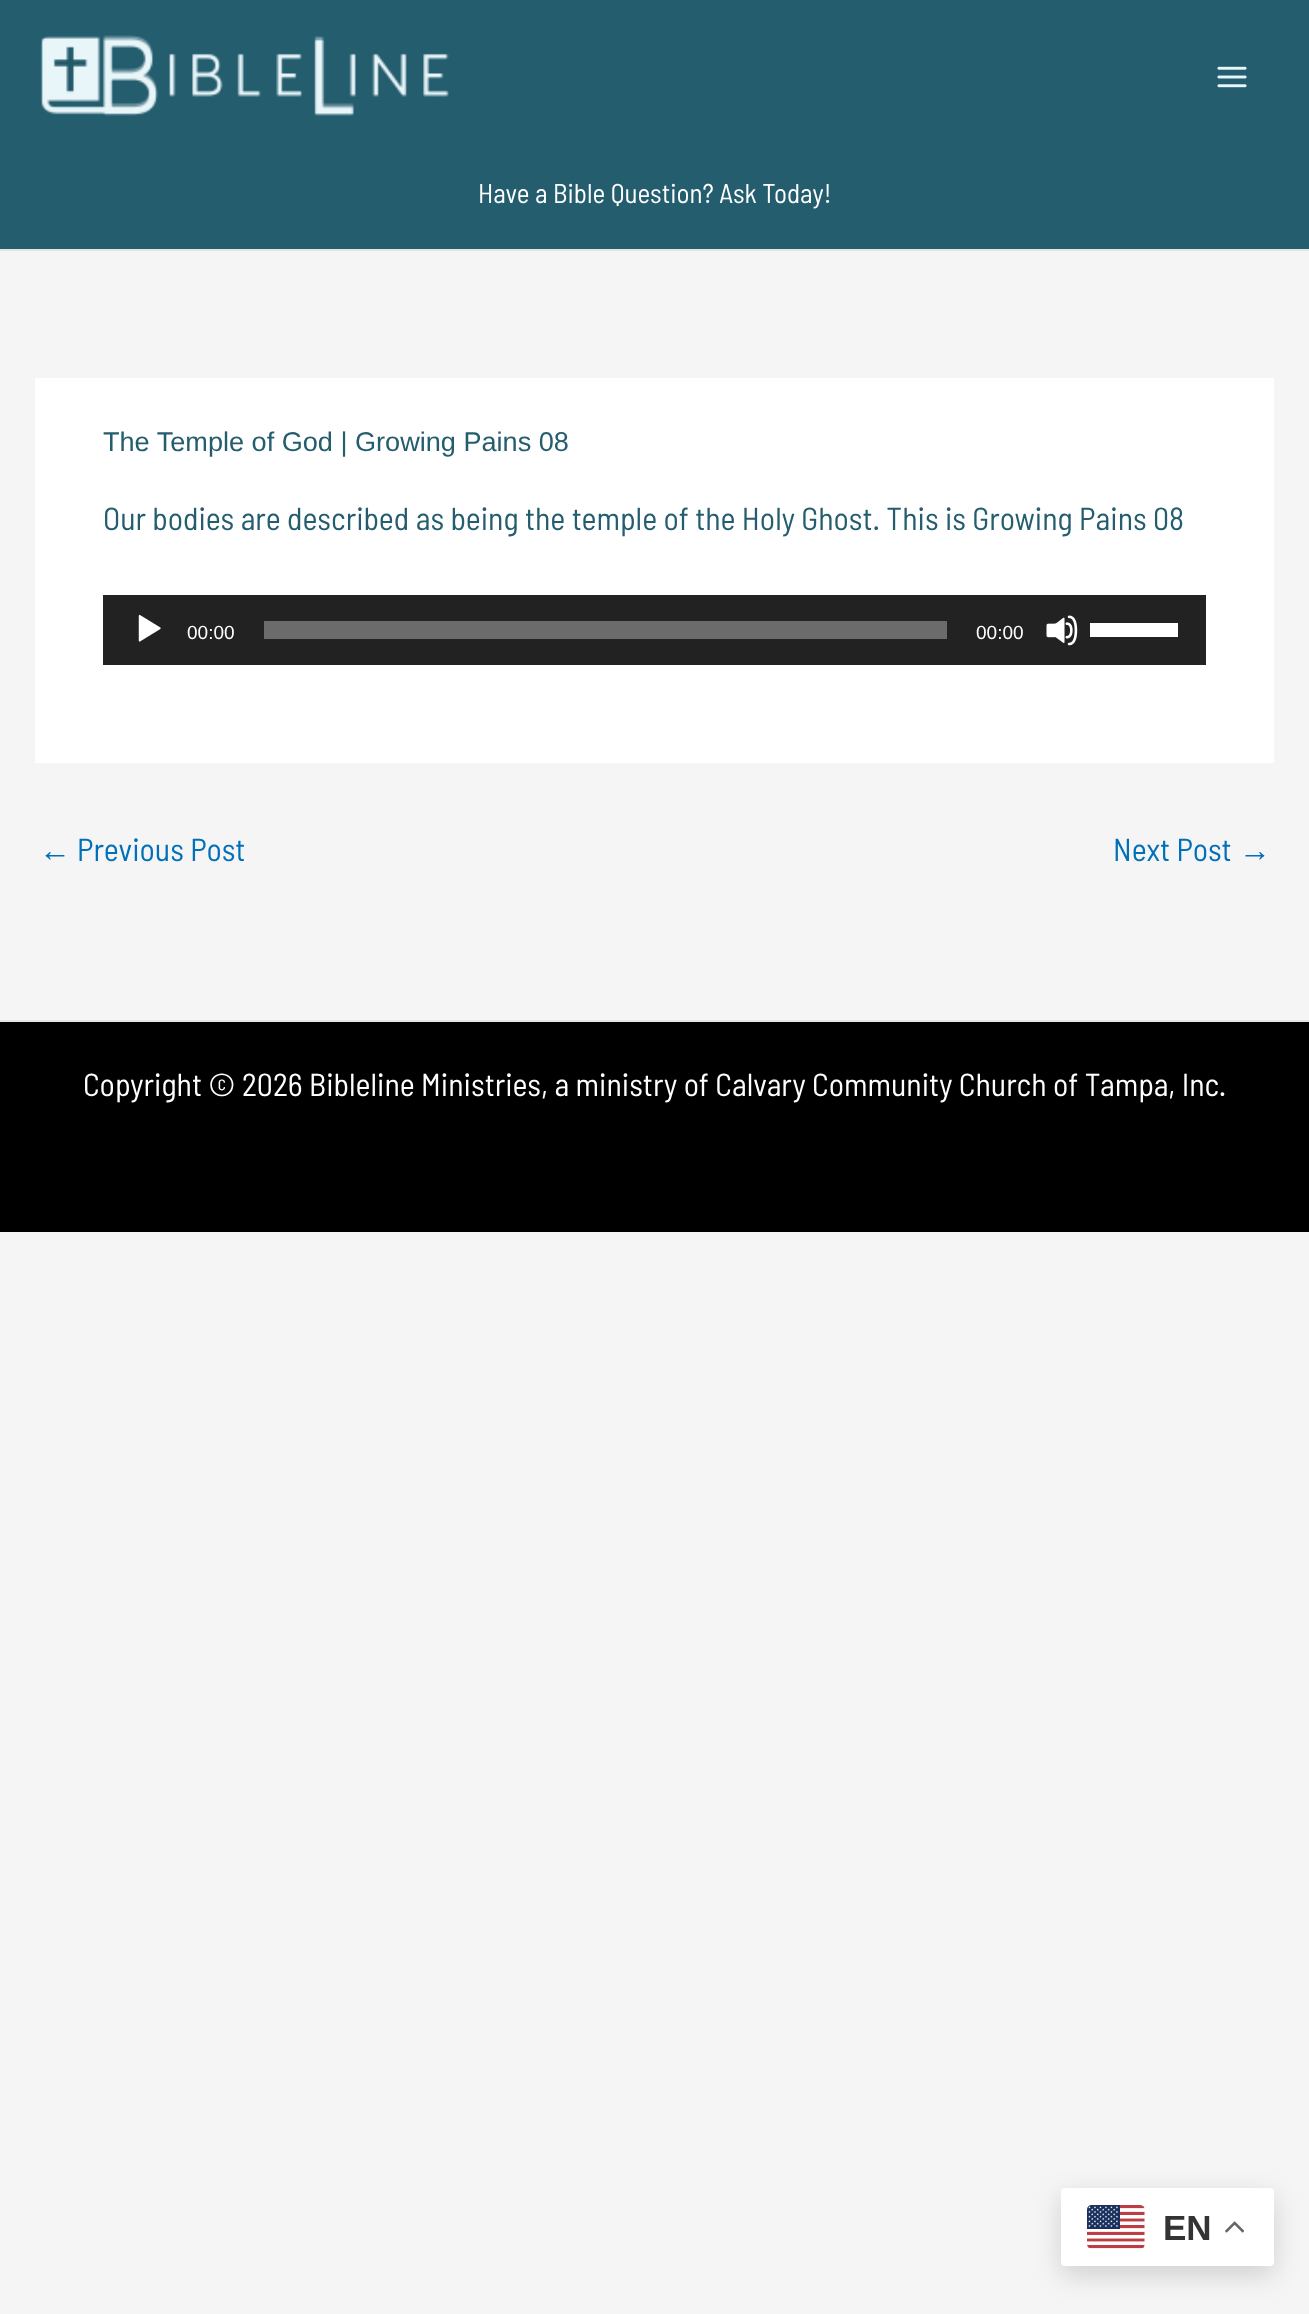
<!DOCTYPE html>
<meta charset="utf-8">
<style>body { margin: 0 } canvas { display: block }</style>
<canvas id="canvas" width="1309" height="2314"></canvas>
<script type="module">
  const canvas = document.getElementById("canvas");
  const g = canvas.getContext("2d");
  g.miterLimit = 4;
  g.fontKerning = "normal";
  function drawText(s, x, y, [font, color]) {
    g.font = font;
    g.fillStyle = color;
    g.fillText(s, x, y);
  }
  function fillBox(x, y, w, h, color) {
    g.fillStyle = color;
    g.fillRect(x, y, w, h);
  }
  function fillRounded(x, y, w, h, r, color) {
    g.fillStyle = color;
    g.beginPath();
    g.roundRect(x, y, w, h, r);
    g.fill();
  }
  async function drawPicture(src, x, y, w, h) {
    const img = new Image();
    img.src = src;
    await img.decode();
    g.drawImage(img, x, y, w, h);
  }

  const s1 = ["27.1px Barlow Semi Condensed", "#FFFFFF"];
  const s2 = ["27.1px Liberation Sans", "#245D6E"];
  const s3 = ["31.9px Barlow Semi Condensed", "#245D6E"];
  const s4 = ["19px Liberation Sans", "#FFFFFF"];
  const s5 = ["31.9px Liberation Sans", "#0170B9"];
  const s6 = ["31.9px Barlow Semi Condensed", "#0170B9"];
  const s7 = ["31.9px Barlow Semi Condensed", "#FFFFFF"];
  const s8 = ["bold 35px Liberation Sans", "#333333"];

  fillBox(0, 0, 1309, 2314, "#F5F5F5");
  fillBox(0, 0, 1309, 249, "#245D6E");
  await drawPicture("pic1.png", 40, 35, 409, 81);
  await drawPicture("pic2.png", 1217, 66, 30, 22);
  fillBox(0, 249, 1309, 2, "#E5E5E5");
  drawText("Have a Bible Question? Ask Today!", 478, 203, s1);
  fillBox(35, 378, 1239, 385, "#FFFFFF");
  drawText("The Temple of God | Growing Pains 08", 103, 451, s2);
  drawText("Our bodies are described as being the temple of the Holy Ghost. This is Growing Pains 08", 103, 530, s3);
  fillBox(103, 595, 1103, 70, "#222222");
  await drawPicture("pic3.png", 138, 614, 23, 28);
  drawText("00:00", 187, 639, s4);
  fillBox(264, 621, 683, 18, "#6B6B6B");
  drawText("00:00", 976, 639, s4);
  await drawPicture("pic4.png", 1046, 615, 32, 31);
  fillBox(1090, 623, 88, 14, "#FFFFFF");
  drawText("←", 39, 861, s5);
  drawText("Previous Post", 77, 861, s6);
  drawText("Next Post", 1113, 861, s6);
  drawText("→", 1239, 861, s5);
  fillBox(0, 1022, 1309, 210, "#000000");
  fillBox(0, 1020, 1309, 2, "#E5E5E5");
  drawText("Copyright © 2026 Bibleline Ministries, a ministry of Calvary Community Church of Tampa, Inc.", 83, 1096, s7);
  g.fillStyle = "rgba(0, 0, 0, 0.15)";
  g.filter = "blur(13px)";
  g.beginPath();
  g.roundRect(1061, 2196, 213, 79, 4);
  g.fill();
  g.filter = "none";
  fillRounded(1061, 2188, 213, 78, 4, "#FFFFFF");
  await drawPicture("pic5.png", 1087, 2205, 58, 44);
  drawText("EN", 1163, 2240, s8);
  await drawPicture("pic6.png", 1225, 2221, 19, 12);
</script>
